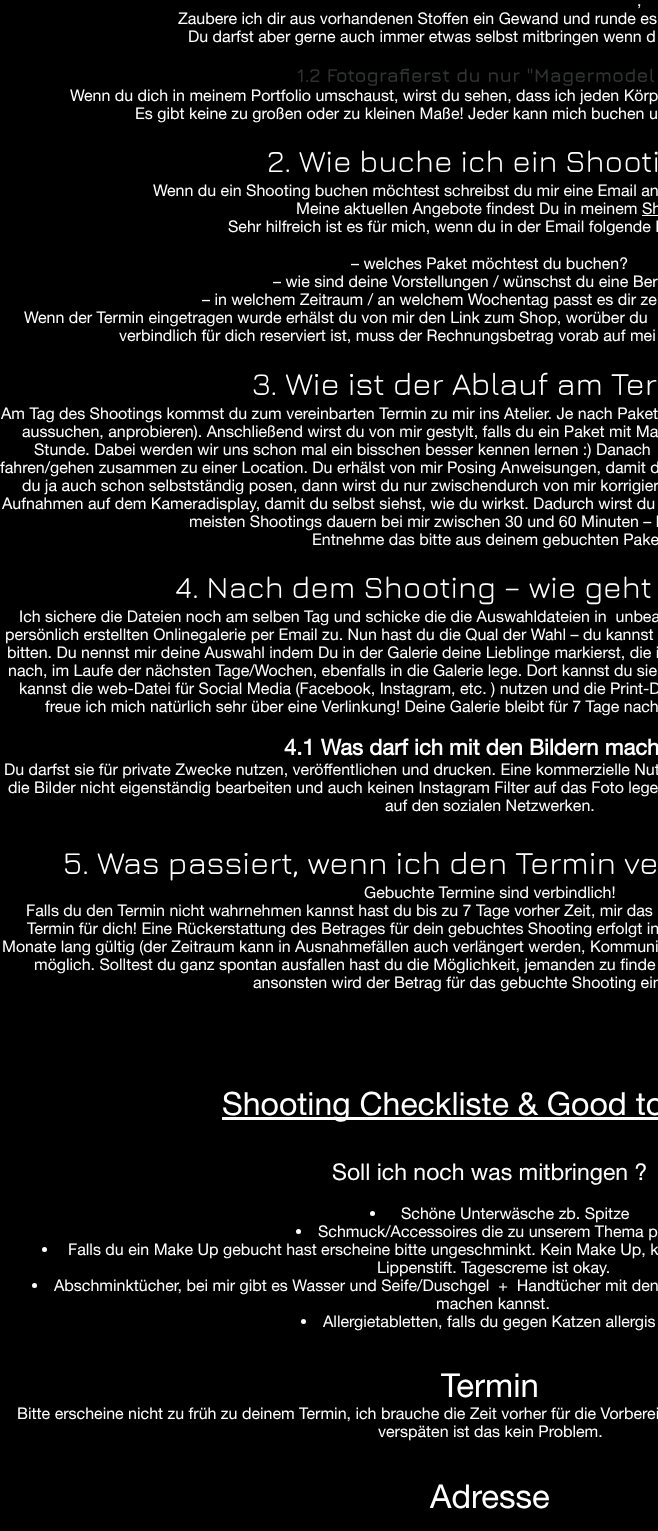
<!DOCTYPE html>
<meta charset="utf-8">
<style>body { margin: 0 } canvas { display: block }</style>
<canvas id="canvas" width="658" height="1531"></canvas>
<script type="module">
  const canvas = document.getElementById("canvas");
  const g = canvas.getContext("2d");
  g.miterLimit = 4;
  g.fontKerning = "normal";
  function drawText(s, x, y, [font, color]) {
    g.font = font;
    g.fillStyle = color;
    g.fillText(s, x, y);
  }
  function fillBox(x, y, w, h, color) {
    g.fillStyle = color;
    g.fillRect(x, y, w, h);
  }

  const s1 = ["16px helvetica neue", "#FFFFFF"];
  const s2 = ["bold 19px Jura", "#303131"];
  const s3 = ["31px Jura", "#FFFFFF"];
  const s4 = ["32px Jura", "#FFFFFF"];
  const s5 = ["bold 22px helvetica neue", "#FFFFFF"];
  const s6 = ["32px helvetica neue", "#FFFFFF"];
  const s7 = ["23px helvetica neue", "#FFFFFF"];
  const s8 = ["33px helvetica neue", "#FFFFFF"];

  fillBox(0, 0, 658, 1531, "#000000");
  drawText(",", 637, 6, s1);
  drawText("Zaubere ich dir aus vorhandenen Stoffen ein Gewand und runde es", 178, 24, s1);
  drawText("Du darfst aber gerne auch immer etwas selbst mitbringen wenn d", 188, 42, s1);
  drawText("1.2 Fotografierst du nur \"Magermodel", 297, 82, s2);
  drawText("Wenn du dich in meinem Portfolio umschaust, wirst du sehen, dass ich jeden Körp", 70, 101, s1);
  drawText("Es gibt keine zu großen oder zu kleinen Maße! Jeder kann mich buchen u", 135, 119, s1);
  drawText("2. Wie buche ich ein Shooti", 267, 172, s3);
  drawText("Wenn du ein Shooting buchen möchtest schreibst du mir eine Email an", 153, 196, s1);
  drawText("Meine aktuellen Angebote findest Du in meinem Sh", 296, 214, s1);
  fillBox(642, 215, 16, 1, "#FFFFFF");
  drawText("Sehr hilfreich ist es für mich, wenn du in der Email folgende I", 228, 232, s1);
  drawText("– welches Paket möchtest du buchen?", 351, 269, s1);
  drawText("– wie sind deine Vorstellungen / wünschst du eine Ber", 273, 287, s1);
  drawText("– in welchem Zeitraum / an welchem Wochentag passt es dir ze", 202, 305, s1);
  drawText("Wenn der Termin eingetragen wurde erhälst du von mir den Link zum Shop, worüber du", 24, 323, s1);
  drawText("verbindlich für dich reserviert ist, muss der Rechnungsbetrag vorab auf mei", 119, 341, s1);
  drawText("3. Wie ist der Ablauf am Ter", 252, 395, s4);
  drawText("Am Tag des Shootings kommst du zum vereinbarten Termin zu mir ins Atelier. Je nach Paket", 1, 419, s1);
  drawText("aussuchen, anprobieren). Anschließend wirst du von mir gestylt, falls du ein Paket mit Ma", 22, 437, s1);
  drawText("Stunde. Dabei werden wir uns schon mal ein bisschen besser kennen lernen :) Danach", 34, 455, s1);
  drawText("fahren/gehen zusammen zu einer Location. Du erhälst von mir Posing Anweisungen, damit d", 0, 473, s1);
  drawText("du ja auch schon selbstständig posen, dann wirst du nur zwischendurch von mir korrigier", 22, 491, s1);
  drawText("Aufnahmen auf dem Kameradisplay, damit du selbst siehst, wie du wirkst. Dadurch wirst du", 2, 509, s1);
  drawText("meisten Shootings dauern bei mir zwischen 30 und 60 Minuten – l", 189, 527, s1);
  drawText("Entnehme das bitte aus deinem gebuchten Pake", 312, 545, s1);
  drawText("4. Nach dem Shooting – wie geht", 175, 598, s3);
  drawText("Ich sichere die Dateien noch am selben Tag und schicke die die Auswahldateien in  unbea", 19, 622, s1);
  drawText("persönlich erstellten Onlinegalerie per Email zu. Nun hast du die Qual der Wahl – du kannst", 5, 640, s1);
  drawText("bitten. Du nennst mir deine Auswahl indem Du in der Galerie deine Lieblinge markierst, die i", 7, 658, s1);
  drawText("nach, im Laufe der nächsten Tage/Wochen, ebenfalls in die Galerie lege. Dort kannst du sie", 8, 676, s1);
  drawText("kannst die web-Datei für Social Media (Facebook, Instagram, etc. ) nutzen und die Print-D", 19, 694, s1);
  drawText("freue ich mich natürlich sehr über eine Verlinkung! Deine Galerie bleibt für 7 Tage nach", 45, 712, s1);
  drawText("4.1 Was darf ich mit den Bildern mach", 284, 755, s5);
  drawText("Du darfst sie für private Zwecke nutzen, veröffentlichen und drucken. Eine kommerzielle Nut", 4, 775, s1);
  drawText("die Bilder nicht eigenständig bearbeiten und auch keinen Instagram Filter auf das Foto lege", 8, 793, s1);
  drawText("auf den sozialen Netzwerken.", 385, 811, s1);
  drawText("5. Was passiert, wenn ich den Termin ve", 63, 874, s4);
  drawText("Gebuchte Termine sind verbindlich!", 364, 898, s1);
  drawText("Falls du den Termin nicht wahrnehmen kannst hast du bis zu 7 Tage vorher Zeit, mir das", 26, 916, s1);
  drawText("Termin für dich! Eine Rückerstattung des Betrages für dein gebuchtes Shooting erfolgt in", 27, 934, s1);
  drawText("Monate lang gültig (der Zeitraum kann in Ausnahmefällen auch verlängert werden, Kommuni", 2, 952, s1);
  drawText("möglich. Solltest du ganz spontan ausfallen hast du die Möglichkeit, jemanden zu finde", 34, 970, s1);
  drawText("ansonsten wird der Betrag für das gebuchte Shooting ein", 253, 988, s1);
  fillBox(222, 1117, 436, 3, "#FFFFFF");
  drawText("Shooting Checkliste & Good to", 222, 1115, s6);
  drawText("Soll ich noch was mitbringen ?", 332, 1180, s7);
  g.beginPath();
  g.arc(372.5, 1213.5, 2.5, 0, Math.PI * 2);
  g.fill();
  drawText("Schöne Unterwäsche zb. Spitze", 401, 1219, s1);
  g.beginPath();
  g.arc(298.5, 1231.5, 2.5, 0, Math.PI * 2);
  g.fill();
  drawText("Schmuck/Accessoires die zu unserem Thema p", 318, 1237, s1);
  g.beginPath();
  g.arc(44.5, 1249.5, 2.5, 0, Math.PI * 2);
  g.fill();
  drawText("Falls du ein Make Up gebucht hast erscheine bitte ungeschminkt. Kein Make Up, k", 68, 1255, s1);
  drawText("Lippenstift. Tagescreme ist okay.", 377, 1273, s1);
  g.beginPath();
  g.arc(34.5, 1285.5, 2.5, 0, Math.PI * 2);
  g.fill();
  drawText("Abschminktücher, bei mir gibt es Wasser und Seife/Duschgel  +  Handtücher mit den", 54, 1291, s1);
  drawText("machen kannst.", 436, 1309, s1);
  g.beginPath();
  g.arc(303.5, 1321.5, 2.5, 0, Math.PI * 2);
  g.fill();
  drawText("Allergietabletten, falls du gegen Katzen allergis", 323, 1327, s1);
  drawText("Termin", 441, 1397, s8);
  drawText("Bitte erscheine nicht zu früh zu deinem Termin, ich brauche die Zeit vorher für die Vorberei", 17, 1419, s1);
  drawText("verspäten ist das kein Problem.", 378, 1437, s1);
  drawText("Adresse", 430, 1508, s8);
</script>
